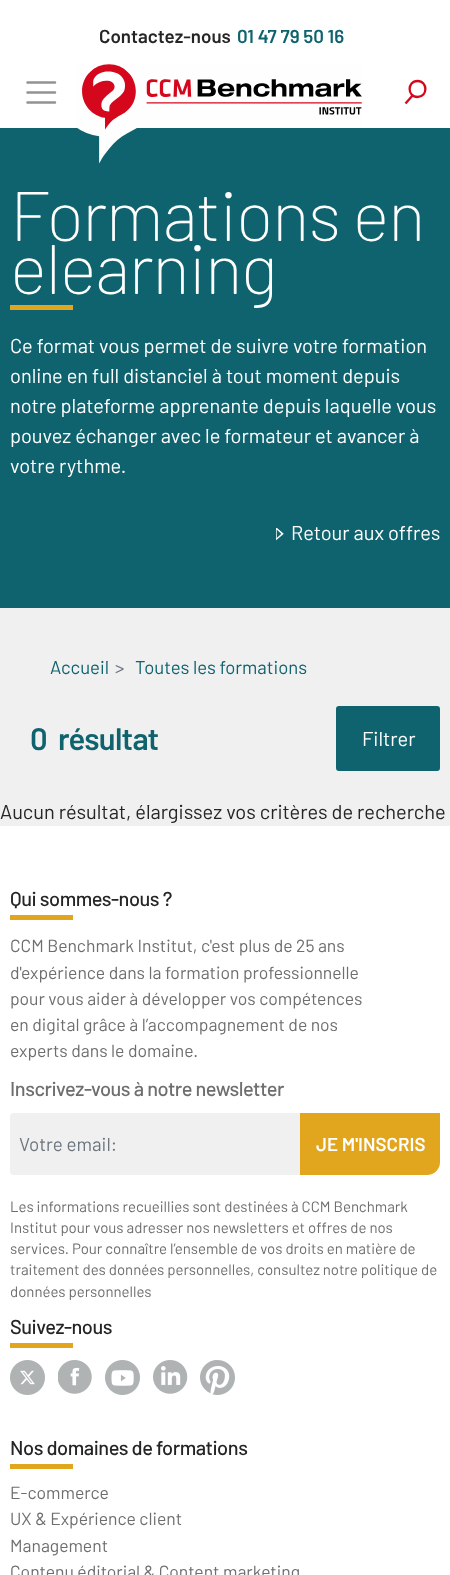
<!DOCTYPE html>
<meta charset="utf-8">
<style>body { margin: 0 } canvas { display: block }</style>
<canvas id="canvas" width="450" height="1575"></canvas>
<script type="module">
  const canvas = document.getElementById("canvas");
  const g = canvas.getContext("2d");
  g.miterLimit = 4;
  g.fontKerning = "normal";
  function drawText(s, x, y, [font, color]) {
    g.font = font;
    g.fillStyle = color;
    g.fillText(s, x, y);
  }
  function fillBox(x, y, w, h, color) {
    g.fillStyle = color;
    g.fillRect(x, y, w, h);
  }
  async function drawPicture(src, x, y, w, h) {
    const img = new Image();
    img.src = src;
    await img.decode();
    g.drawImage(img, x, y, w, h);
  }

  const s1 = ["600 18.75px Barlow", "#252525"];
  const s2 = ["600 18.75px Barlow", "#0F636E"];
  const s3 = ["200 70px Barlow", "#FFFFFF"];
  const s4 = ["20px Barlow", "#FFFFFF"];
  const s5 = ["18.5px Barlow", "#0F636E"];
  const s6 = ["18.5px Barlow", "#6C757D"];
  const s7 = ["600 31px Barlow", "#0F636E"];
  const s8 = ["20px Barlow", "#252525"];
  const s9 = ["500 20px Barlow", "#252525"];
  const s10 = ["17.5px Barlow", "#6E6E6E"];
  const s11 = ["500 20px Barlow", "#6E6E6E"];
  const s12 = ["18.75px Barlow", "#6C757D"];
  const s13 = ["600 18.75px Barlow", "#FFFFFF"];
  const s14 = ["15px Barlow", "#6E6E6E"];

  fillBox(0, 0, 450, 1575, "#F0F0F0");
  fillBox(0, 0, 450, 128, "#FFFFFF");
  drawText("Contactez-nous", 99, 43, s1);
  drawText("01 47 79 50 16", 237, 43, s2);
  g.beginPath();
  g.moveTo(27.5, 82.5);
  g.lineTo(55, 82.5);
  g.moveTo(27.5, 92.5);
  g.lineTo(55, 92.5);
  g.moveTo(27.5, 102.5);
  g.lineTo(55, 102.5);
  g.strokeStyle = "#929292";
  g.lineWidth = 2.5;
  g.lineCap = "round";
  g.stroke();
  fillBox(0, 128, 450, 480, "#0F636E");
  await drawPicture("pic1.png", 77, 64, 285, 100);
  g.beginPath();
  g.moveTo(417.5, 97);
  g.bezierCurveTo(428, 97, 428, 81, 417.5, 81);
  g.bezierCurveTo(407, 81, 407, 97, 417.5, 97);
  g.closePath();
  g.moveTo(413, 95);
  g.lineTo(405.5, 103.5);
  g.strokeStyle = "#D5071C";
  g.lineWidth = 2.3;
  g.lineCap = "butt";
  g.stroke();
  g.letterSpacing = "-1.4px";
  drawText("Formations en", 10, 241, s3);
  drawText("elearning", 10, 294, s3);
  fillBox(10, 305, 63, 5, "#E2A51E");
  g.letterSpacing = "0px";
  drawText("Ce format vous permet de suivre votre formation", 10, 353, s4);
  drawText("online en full distanciel à tout moment depuis", 10, 383, s4);
  drawText("notre plateforme apprenante depuis laquelle vous", 10, 413, s4);
  drawText("pouvez échanger avec le formateur et avancer à", 10, 443, s4);
  drawText("votre rythme.", 10, 473, s4);
  await drawPicture("pic2.png", 276, 528, 8, 13);
  drawText("Retour aux offres", 291, 540, s4);
  drawText("Accueil", 50, 674, s5);
  drawText(">", 115, 674, s6);
  drawText("Toutes les formations", 135, 674, s5);
  g.letterSpacing = "-0.75px";
  drawText("0", 30, 750, s7);
  drawText("résultat", 58, 750, s7);
  g.beginPath();
  g.roundRect(337.5, 707.5, 101, 62, 1.5);
  g.fill();
  g.strokeStyle = "#0F636E";
  g.lineWidth = 3;
  g.stroke();
  g.letterSpacing = "0px";
  drawText("Filtrer", 362, 746, s4);
  drawText("Aucun résultat, élargissez vos critères de recherche", 0, 819, s8);
  fillBox(0, 826, 450, 749, "#FFFFFF");
  g.letterSpacing = "-0.45px";
  drawText("Qui sommes-nous ?", 10, 906, s9);
  fillBox(10, 915, 63, 5, "#E2A51E");
  g.letterSpacing = "0px";
  drawText("CCM Benchmark Institut, c'est plus de 25 ans", 10, 952, s10);
  drawText("d'expérience dans la formation professionnelle", 10, 979, s10);
  drawText("pour vous aider à développer vos compétences", 10, 1005, s10);
  drawText("en digital grâce à l’accompagnement de nos", 10, 1031, s10);
  drawText("experts dans le domaine.", 10, 1057, s10);
  g.letterSpacing = "-0.45px";
  drawText("Inscrivez-vous à notre newsletter", 10, 1096, s11);
  g.fillStyle = "#F0F0F0";
  g.beginPath();
  g.roundRect(10, 1113, 291, 62, [4, 0, 0, 4]);
  g.fill();
  g.letterSpacing = "0px";
  drawText("Votre email:", 19, 1151, s12);
  g.fillStyle = "#E2A51E";
  g.beginPath();
  g.roundRect(301.5, 1114.5, 137, 59, [0, 0, 11.5, 0]);
  g.fill();
  g.strokeStyle = "#E2A51E";
  g.stroke();
  drawText("JE M'INSCRIS", 316, 1151, s13);
  drawText("Les informations recueillies sont destinées à CCM Benchmark", 10, 1212, s14);
  drawText("Institut pour vous adresser nos newsletters et offres de nos", 10, 1233, s14);
  drawText("services. Pour connaître l’ensemble de vos droits en matière de", 10, 1254, s14);
  drawText("traitement des données personnelles, consultez notre politique de", 10, 1275, s14);
  drawText("données personnelles", 10, 1297, s14);
  g.letterSpacing = "-0.45px";
  drawText("Suivez-nous", 10, 1334, s9);
  fillBox(10, 1343, 63, 5, "#E2A51E");
  await drawPicture("pic3.png", 10, 1360, 35, 35);
  await drawPicture("pic4.png", 58, 1360, 34, 34);
  await drawPicture("pic5.png", 105, 1360, 35, 35);
  await drawPicture("pic6.png", 153, 1360, 35, 34);
  await drawPicture("pic7.png", 200, 1360, 35, 35);
  drawText("Nos domaines de formations", 10, 1455, s9);
  fillBox(10, 1464, 63, 5, "#E2A51E");
  g.letterSpacing = "0px";
  drawText("E-commerce", 10, 1499, s10);
  drawText("UX & Expérience client", 10, 1525, s10);
  drawText("Management", 10, 1552, s10);
  drawText("Contenu éditorial & Content marketing", 10, 1578, s10);
</script>
